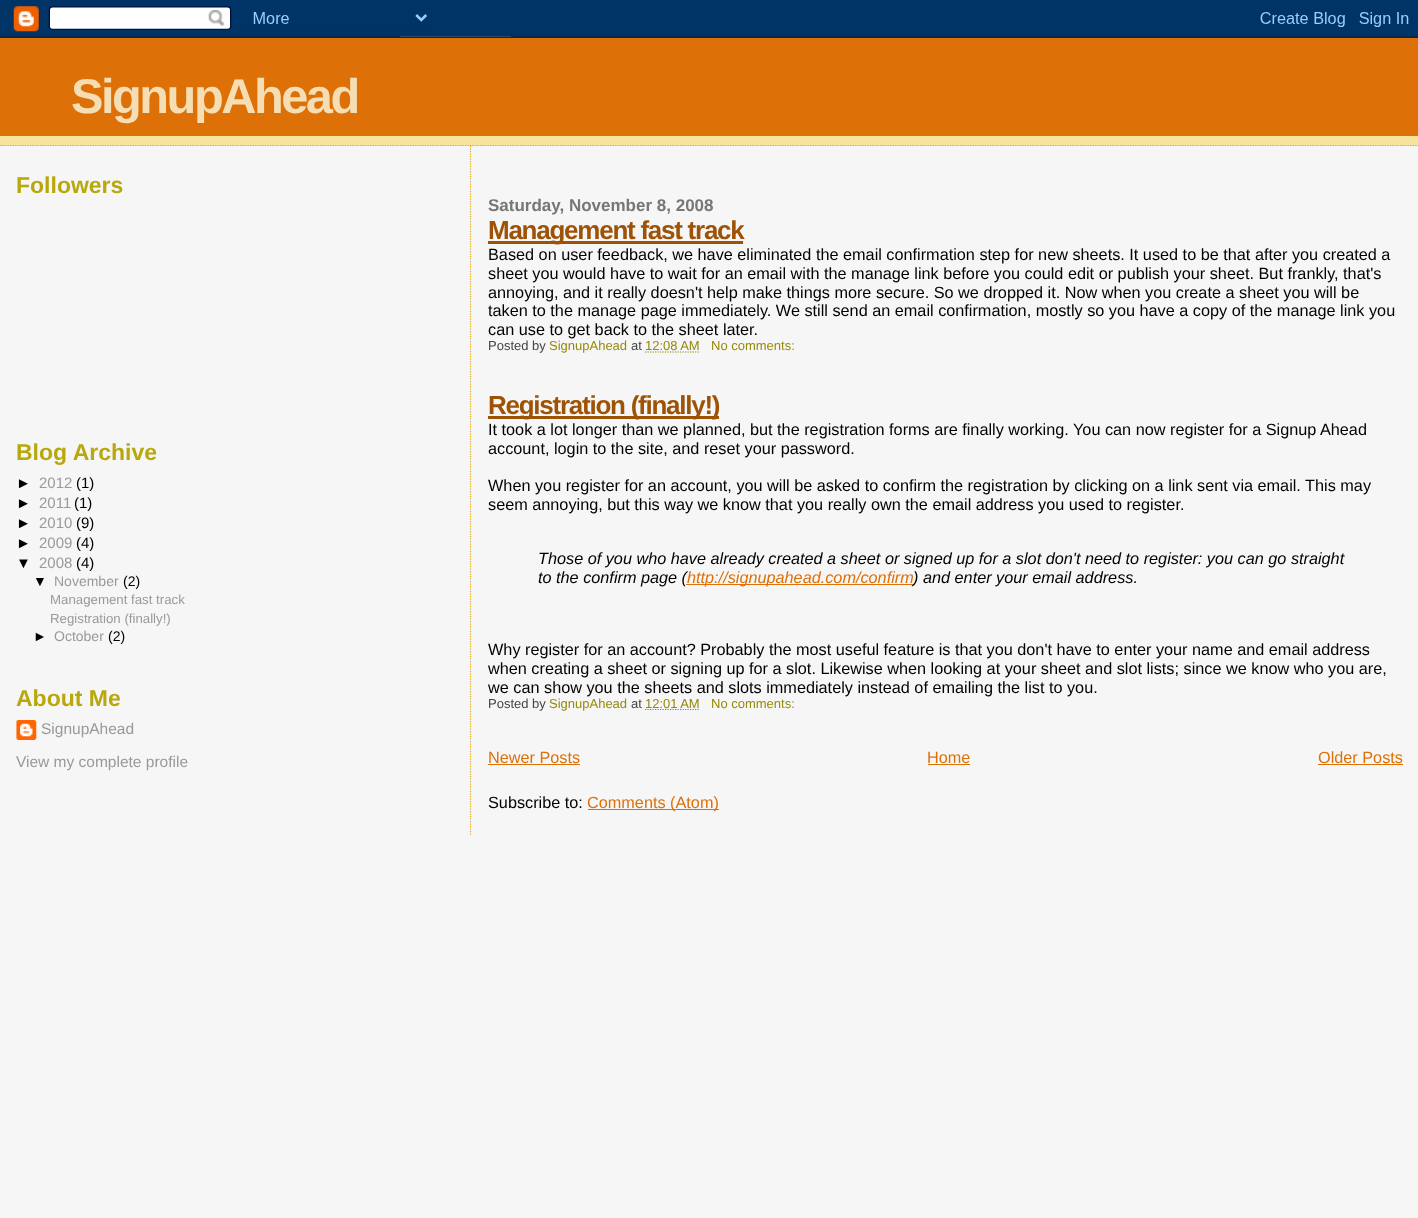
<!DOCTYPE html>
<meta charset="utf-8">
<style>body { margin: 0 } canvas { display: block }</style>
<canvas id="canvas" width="1418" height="1218"></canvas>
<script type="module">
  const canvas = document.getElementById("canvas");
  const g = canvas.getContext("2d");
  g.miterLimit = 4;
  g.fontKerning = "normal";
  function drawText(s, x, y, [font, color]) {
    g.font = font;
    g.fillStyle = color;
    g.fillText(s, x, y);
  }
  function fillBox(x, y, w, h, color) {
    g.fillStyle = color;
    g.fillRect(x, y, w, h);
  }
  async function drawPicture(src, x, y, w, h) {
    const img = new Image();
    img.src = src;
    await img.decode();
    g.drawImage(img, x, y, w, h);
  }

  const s1 = ["bold 48.75px Liberation Sans", "#F5DEB3"];
  const s2 = ["bold 23px Liberation Sans", "#B8A80D"];
  const s3 = ["15px Liberation Sans", "#000000"];
  const s4 = ["15px Liberation Sans", "#999999"];
  const s5 = ["14px Liberation Sans", "#000000"];
  const s6 = ["14px Liberation Sans", "#999999"];
  const s7 = ["13.25px Liberation Sans", "#999999"];
  const s8 = ["15.5px Liberation Sans", "#999999"];
  const s9 = ["bold 17px Liberation Sans", "#777777"];
  const s10 = ["bold 26px Liberation Sans", "#9E5205"];
  const s11 = ["16.25px Liberation Sans", "#000000"];
  const s12 = ["13px Liberation Sans", "#444444"];
  const s13 = ["13px Liberation Sans", "#968A0A"];
  const s14 = ["italic 16.25px Liberation Sans", "#000000"];
  const s15 = ["italic 16.25px Liberation Sans", "#DE7008"];
  const s16 = ["16.25px Liberation Sans", "#DE7008"];

  fillBox(0, 0, 1418, 1218, "#F6F6F6");
  await drawPicture("pic1.png", 0, 0, 1418, 38);
  fillBox(0, 136, 1418, 10, "#F5E39E");
  g.beginPath();
  g.moveTo(0, 145.5);
  g.lineTo(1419, 145.5);
  g.strokeStyle = "#E0AD12";
  g.lineWidth = 1.2;
  g.setLineDash([1.25, 1.25]);
  g.stroke();
  fillBox(0, 38, 1418, 98, "#DE7008");
  g.letterSpacing = "-2.5px";
  drawText("SignupAhead", 71, 113, s1);
  g.letterSpacing = "0px";
  drawText("Followers", 16, 193, s2);
  drawText("Blog Archive", 16, 460, s2);
  drawText("►", 16, 488, s3);
  drawText("2012", 39, 488, s4);
  drawText("(1)", 76, 488, s3);
  drawText("►", 16, 508, s3);
  drawText("2011", 39, 508, s4);
  drawText("(1)", 74, 508, s3);
  drawText("►", 16, 528, s3);
  drawText("2010", 39, 528, s4);
  drawText("(9)", 76, 528, s3);
  drawText("►", 16, 548, s3);
  drawText("2009", 39, 548, s4);
  drawText("(4)", 76, 548, s3);
  drawText("▼", 16, 568, s3);
  drawText("2008", 39, 568, s4);
  drawText("(4)", 76, 568, s3);
  drawText("▼", 33, 586, s5);
  drawText("November", 54, 586, s6);
  drawText("(2)", 123, 586, s5);
  drawText("Management fast track", 50, 604, s7);
  drawText("Registration (finally!)", 50, 623, s7);
  drawText("►", 33, 641, s5);
  drawText("October", 54, 641, s6);
  drawText("(2)", 108, 641, s5);
  drawText("About Me", 16, 706, s2);
  await drawPicture("pic2.png", 16, 720, 21, 20);
  drawText("SignupAhead", 41, 734, s8);
  drawText("View my complete profile", 16, 767, s8);
  g.beginPath();
  g.moveTo(470.5, 146);
  g.lineTo(470.5, 836);
  g.stroke();
  drawText("Saturday, November 8, 2008", 488, 211, s9);
  fillBox(488, 241, 255, 3, "#9E5205");
  g.letterSpacing = "-1.25px";
  drawText("Management fast track", 488, 239, s10);
  g.letterSpacing = "0px";
  drawText("Based on user feedback, we have eliminated the email confirmation step for new sheets. It used to be that after you created a", 488, 260, s11);
  drawText("sheet you would have to wait for an email with the manage link before you could edit or publish your sheet. But frankly, that's", 488, 279, s11);
  drawText("annoying, and it really doesn't help make things more secure. So we dropped it. Now when you create a sheet you will be", 488, 298, s11);
  drawText("taken to the manage page immediately. We still send an email confirmation, mostly so you have a copy of the manage link you", 488, 316, s11);
  drawText("can use to get back to the sheet later.", 488, 335, s11);
  drawText("Posted by", 488, 350, s12);
  drawText("SignupAhead", 549, 350, s13);
  drawText("at", 631, 350, s12);
  drawText("12:08 AM", 645, 350, s13);
  g.beginPath();
  g.moveTo(645, 352);
  g.lineTo(699.5, 352);
  g.strokeStyle = "#968A0A";
  g.stroke();
  drawText("No comments:", 711, 350, s13);
  fillBox(488, 416, 231, 3, "#9E5205");
  g.letterSpacing = "-1.25px";
  drawText("Registration (finally!)", 488, 414, s10);
  g.letterSpacing = "0px";
  drawText("It took a lot longer than we planned, but the registration forms are finally working. You can now register for a Signup Ahead", 488, 435, s11);
  drawText("account, login to the site, and reset your password.", 488, 454, s11);
  drawText("When you register for an account, you will be asked to confirm the registration by clicking on a link sent via email. This may", 488, 491, s11);
  drawText("seem annoying, but this way we know that you really own the email address you used to register.", 488, 510, s11);
  drawText("Those of you who have already created a sheet or signed up for a slot don't need to register: you can go straight", 538, 564, s14);
  drawText("to the confirm page (", 538, 583, s14);
  fillBox(686, 584, 228, 1, "#DE7008");
  drawText("http://signupahead.com/confirm", 687, 583, s15);
  drawText(") and enter your email address.", 913, 583, s14);
  drawText("Why register for an account? Probably the most useful feature is that you don't have to enter your name and email address", 488, 655, s11);
  drawText("when creating a sheet or signing up for a slot. Likewise when looking at your sheet and slot lists; since we know who you are,", 488, 674, s11);
  drawText("we can show you the sheets and slots immediately instead of emailing the list to you.", 488, 693, s11);
  drawText("Posted by", 488, 708, s12);
  drawText("SignupAhead", 549, 708, s13);
  drawText("at", 631, 708, s12);
  g.beginPath();
  g.moveTo(645, 709.5);
  g.lineTo(699.5, 709.5);
  g.stroke();
  drawText("12:01 AM", 645, 708, s13);
  drawText("No comments:", 711, 708, s13);
  drawText("Newer Posts", 488, 763, s16);
  fillBox(488, 764, 92, 1, "#DE7008");
  drawText("Home", 927, 763, s16);
  fillBox(928, 764, 42, 1, "#DE7008");
  drawText("Older Posts", 1318, 763, s16);
  fillBox(1318, 764, 85, 1, "#DE7008");
  drawText("Subscribe to:", 488, 808, s11);
  fillBox(588, 809, 131, 1, "#DE7008");
  drawText("Comments (Atom)", 587, 808, s16);
</script>
